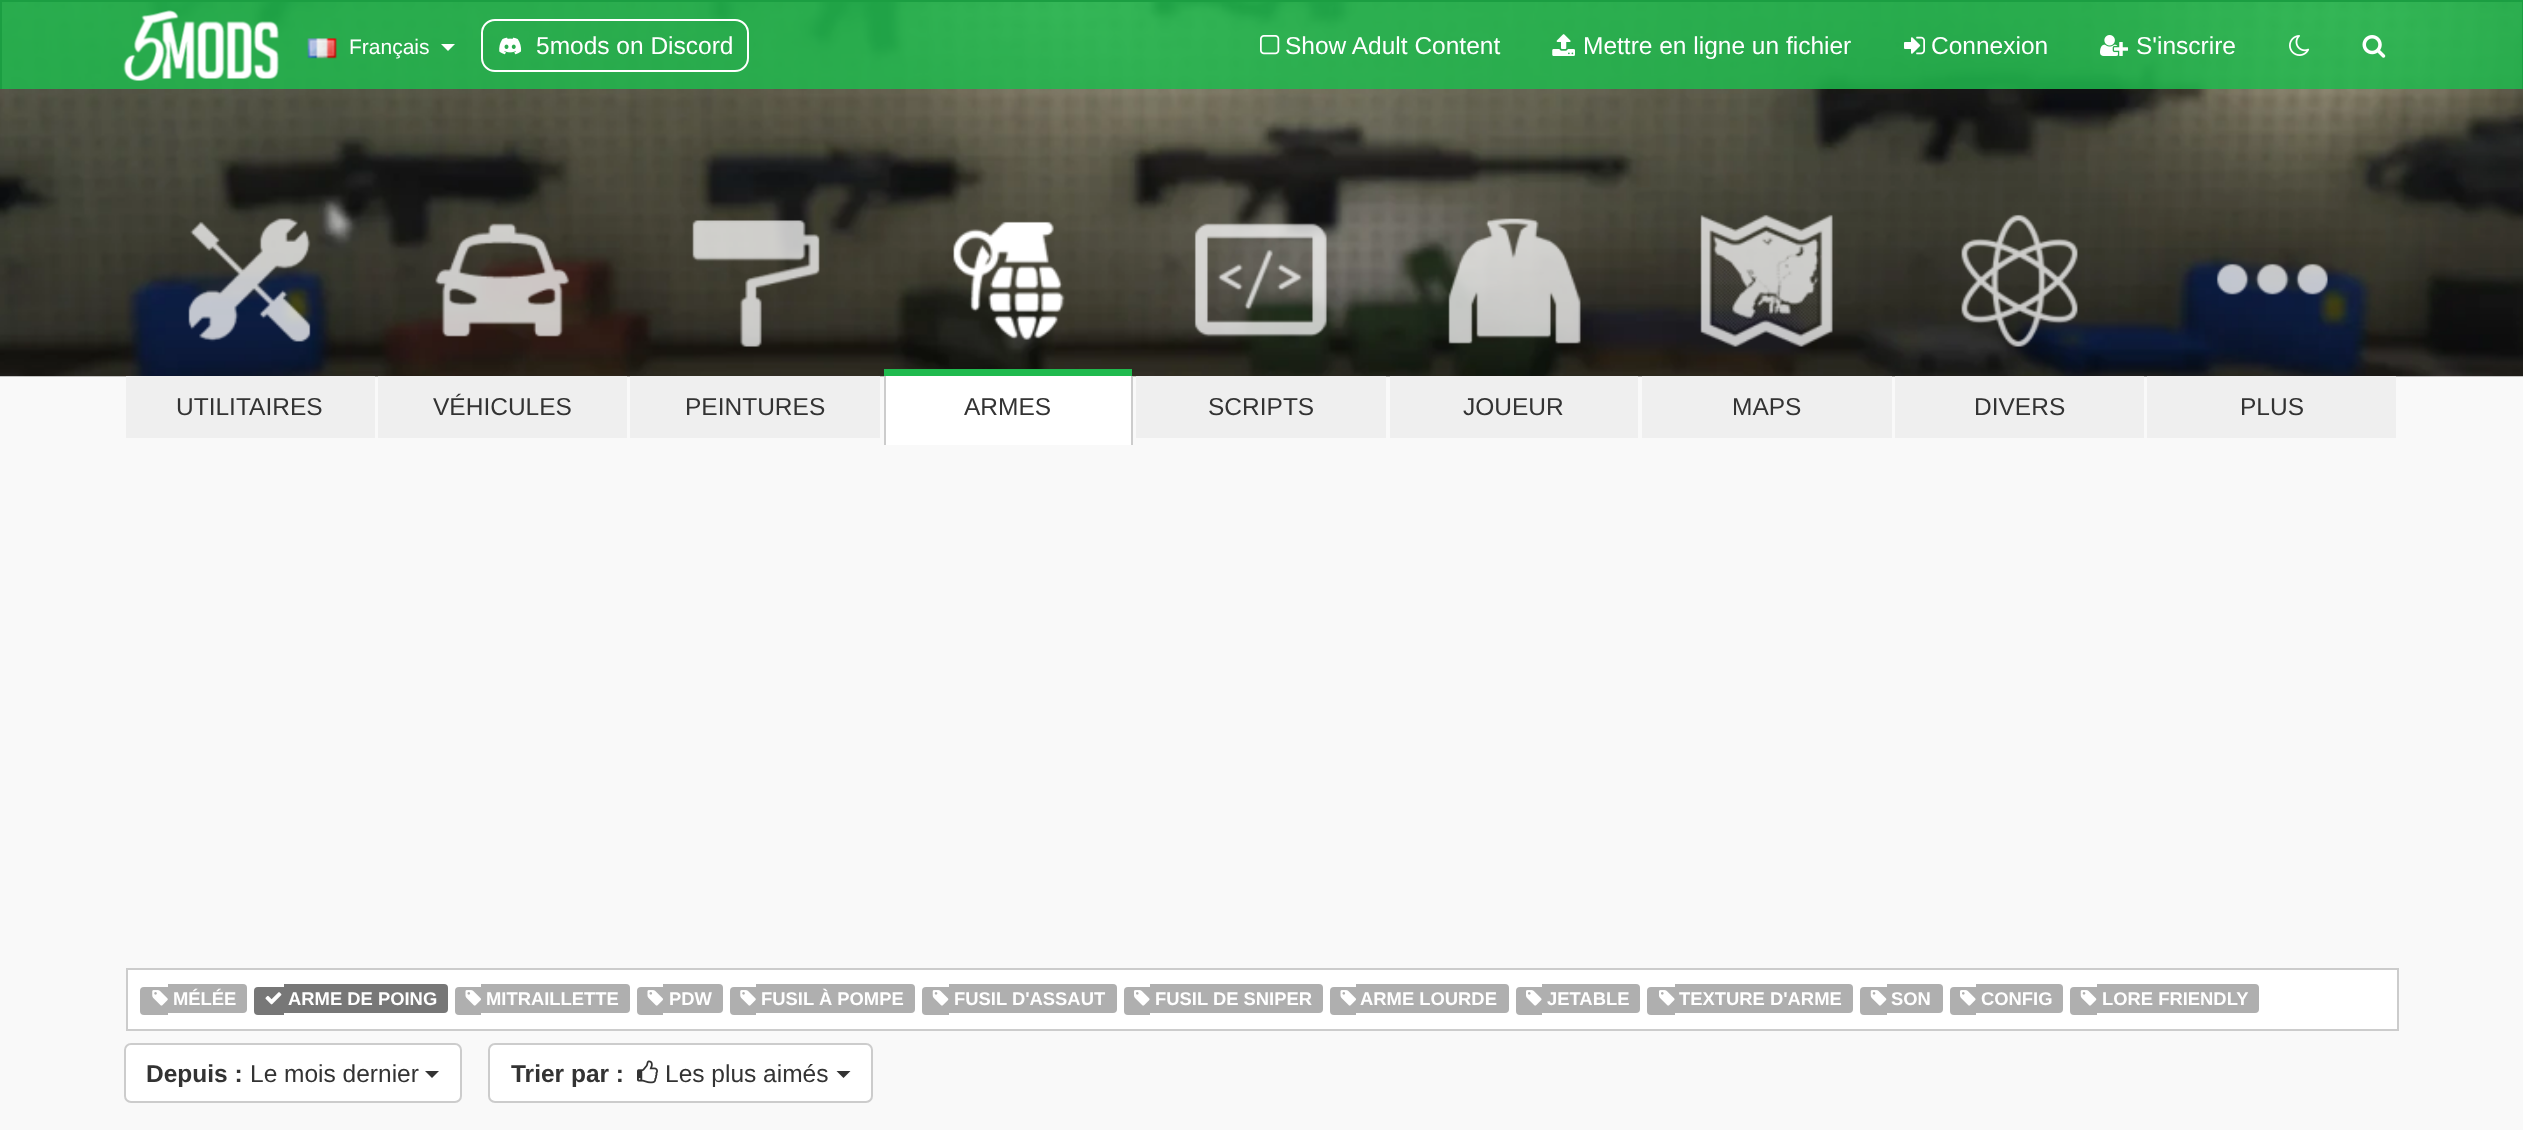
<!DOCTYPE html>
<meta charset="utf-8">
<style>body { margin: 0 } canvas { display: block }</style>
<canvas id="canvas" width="2523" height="1130"></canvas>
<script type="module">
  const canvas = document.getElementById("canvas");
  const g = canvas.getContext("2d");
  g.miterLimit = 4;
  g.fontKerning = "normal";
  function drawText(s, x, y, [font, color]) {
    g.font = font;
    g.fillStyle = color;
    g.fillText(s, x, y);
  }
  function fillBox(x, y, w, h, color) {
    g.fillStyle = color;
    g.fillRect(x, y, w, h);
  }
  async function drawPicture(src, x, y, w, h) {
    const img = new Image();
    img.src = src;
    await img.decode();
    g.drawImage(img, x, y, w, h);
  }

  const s1 = ["21px Liberation Sans", "#FFFFFF"];
  const s2 = ["24.5px Liberation Sans", "#FFFFFF"];
  const s3 = ["24.5px Liberation Sans", "#333333"];
  const s4 = ["bold 18.4px Liberation Sans", "#FFFFFF"];
  const s5 = ["bold 24.5px Liberation Sans", "#333333"];

  fillBox(0, 0, 2523, 1130, "#F9F9F9");
  await drawPicture("pic10.png", 0, 2, 2523, 375);
  fillBox(2, 2, 2520, 87, "rgba(32, 186, 78, 0.85)");
  fillBox(0, 0, 2523, 2, "#1B9E42");
  fillBox(2522, 0, 1, 89, "#1B9E42");
  fillBox(0, 0, 2, 89, "#1B9E42");
  await drawPicture("pic1.png", 123, 10, 156, 71);
  await drawPicture("pic2.png", 307, 38, 30, 21);
  drawText("Français", 349, 54, s1);
  g.beginPath();
  g.moveTo(441, 44);
  g.lineTo(455, 44);
  g.lineTo(448, 51);
  g.closePath();
  g.fill();
  g.beginPath();
  g.roundRect(482, 20, 266, 51, 13);
  g.strokeStyle = "#FFFFFF";
  g.lineWidth = 2;
  g.stroke();
  await drawPicture("pic3.png", 499, 37, 23, 18);
  drawText("5mods on Discord", 536, 54, s2);
  await drawPicture("pic4.png", 1260, 35, 20, 20);
  drawText("Show Adult Content", 1285, 54, s2);
  await drawPicture("pic5.png", 1552, 34, 23, 22);
  drawText("Mettre en ligne un fichier", 1583, 54, s2);
  await drawPicture("pic6.png", 1904, 36, 21, 19);
  drawText("Connexion", 1931, 54, s2);
  await drawPicture("pic7.png", 2100, 35, 28, 21);
  drawText("S'inscrire", 2136, 54, s2);
  await drawPicture("pic8.png", 2289, 35, 21, 21);
  await drawPicture("pic9.png", 2362, 35, 24, 23);
  await drawPicture("pic11.png", 188, 218, 123, 124);
  fillBox(126, 376, 249, 62, "#EFEFEF");
  drawText("UTILITAIRES", 176, 415, s3);
  await drawPicture("pic12.png", 435, 223, 135, 114);
  fillBox(378, 376, 249, 62, "#EFEFEF");
  drawText("VÉHICULES", 433, 415, s3);
  await drawPicture("pic13.png", 692, 220, 128, 127);
  fillBox(630, 376, 250, 62, "#EFEFEF");
  drawText("PEINTURES", 685, 415, s3);
  await drawPicture("pic14.png", 953, 221, 112, 119);
  fillBox(884, 369, 248, 7, "#20BA4E");
  fillBox(1131, 376, 2, 69, "#CCCCCC");
  fillBox(884, 376, 2, 69, "#CCCCCC");
  fillBox(886, 376, 245, 69, "#FFFFFF");
  drawText("ARMES", 964, 415, s3);
  await drawPicture("pic15.png", 1194, 223, 133, 114);
  fillBox(1136, 376, 250, 62, "#EFEFEF");
  drawText("SCRIPTS", 1208, 415, s3);
  await drawPicture("pic16.png", 1448, 218, 133, 126);
  fillBox(1390, 376, 248, 62, "#EFEFEF");
  drawText("JOUEUR", 1463, 415, s3);
  await drawPicture("pic17.png", 1700, 214, 133, 133);
  fillBox(1642, 376, 250, 62, "#EFEFEF");
  drawText("MAPS", 1732, 415, s3);
  await drawPicture("pic18.png", 1961, 214, 117, 133);
  fillBox(1895, 376, 249, 62, "#EFEFEF");
  drawText("DIVERS", 1974, 415, s3);
  await drawPicture("pic19.png", 2216, 263, 112, 32);
  fillBox(2147, 376, 249, 62, "#EFEFEF");
  drawText("PLUS", 2240, 415, s3);
  g.fillStyle = "#FFFFFF";
  g.beginPath();
  g.rect(127, 969, 2271, 61);
  g.fill();
  g.strokeStyle = "#CCCCCC";
  g.stroke();
  g.fillStyle = "#AFAFAF";
  g.beginPath();
  g.roundRect(140, 987, 28, 28, [4, 0, 0, 4]);
  g.fill();
  g.beginPath();
  g.roundRect(168, 984, 79, 29, [0, 4, 4, 0]);
  g.fill();
  await drawPicture("pic20.png", 152, 990, 16, 16);
  drawText("MÉLÉE", 173, 1005, s4);
  g.fillStyle = "#777777";
  g.beginPath();
  g.roundRect(254, 987, 30, 28, [4, 0, 0, 4]);
  g.fill();
  g.beginPath();
  g.roundRect(284, 984, 164, 29, [0, 4, 4, 0]);
  g.fill();
  await drawPicture("pic21.png", 265, 992, 17, 13);
  drawText("ARME DE POING", 288, 1005, s4);
  g.fillStyle = "#AFAFAF";
  g.beginPath();
  g.roundRect(455, 987, 26, 28, [4, 0, 0, 4]);
  g.fill();
  g.beginPath();
  g.roundRect(481, 984, 149, 29, [0, 4, 4, 0]);
  g.fill();
  await drawPicture("pic22.png", 465, 990, 16, 16);
  drawText("MITRAILLETTE", 486, 1005, s4);
  g.fillStyle = "#AFAFAF";
  g.beginPath();
  g.roundRect(637, 987, 26, 28, [4, 0, 0, 4]);
  g.fill();
  g.beginPath();
  g.roundRect(663, 984, 60, 29, [0, 4, 4, 0]);
  g.fill();
  await drawPicture("pic22.png", 647, 990, 16, 16);
  drawText("PDW", 669, 1005, s4);
  g.fillStyle = "#AFAFAF";
  g.beginPath();
  g.roundRect(730, 987, 26, 28, [4, 0, 0, 4]);
  g.fill();
  g.beginPath();
  g.roundRect(756, 984, 159, 29, [0, 4, 4, 0]);
  g.fill();
  await drawPicture("pic20.png", 740, 990, 16, 16);
  drawText("FUSIL À POMPE", 761, 1005, s4);
  g.fillStyle = "#AFAFAF";
  g.beginPath();
  g.roundRect(922, 987, 27, 28, [4, 0, 0, 4]);
  g.fill();
  g.beginPath();
  g.roundRect(949, 984, 168, 29, [0, 4, 4, 0]);
  g.fill();
  await drawPicture("pic23.png", 932, 990, 17, 16);
  drawText("FUSIL D'ASSAUT", 954, 1005, s4);
  g.fillStyle = "#AFAFAF";
  g.beginPath();
  g.roundRect(1124, 987, 26, 28, [4, 0, 0, 4]);
  g.fill();
  g.beginPath();
  g.roundRect(1150, 984, 173, 29, [0, 4, 4, 0]);
  g.fill();
  await drawPicture("pic24.png", 1134, 990, 16, 16);
  drawText("FUSIL DE SNIPER", 1155, 1005, s4);
  g.fillStyle = "#AFAFAF";
  g.beginPath();
  g.roundRect(1330, 987, 26, 28, [4, 0, 0, 4]);
  g.fill();
  g.beginPath();
  g.roundRect(1356, 984, 153, 29, [0, 4, 4, 0]);
  g.fill();
  await drawPicture("pic22.png", 1340, 990, 16, 16);
  drawText("ARME LOURDE", 1360, 1005, s4);
  g.fillStyle = "#AFAFAF";
  g.beginPath();
  g.roundRect(1516, 987, 26, 28, [4, 0, 0, 4]);
  g.fill();
  g.beginPath();
  g.roundRect(1542, 984, 98, 29, [0, 4, 4, 0]);
  g.fill();
  await drawPicture("pic24.png", 1526, 990, 16, 16);
  drawText("JETABLE", 1547, 1005, s4);
  g.fillStyle = "#AFAFAF";
  g.beginPath();
  g.roundRect(1647, 987, 28, 28, [4, 0, 0, 4]);
  g.fill();
  g.beginPath();
  g.roundRect(1675, 984, 178, 29, [0, 4, 4, 0]);
  g.fill();
  await drawPicture("pic24.png", 1659, 990, 16, 16);
  drawText("TEXTURE D'ARME", 1679, 1005, s4);
  g.fillStyle = "#AFAFAF";
  g.beginPath();
  g.roundRect(1860, 987, 27, 28, [4, 0, 0, 4]);
  g.fill();
  g.beginPath();
  g.roundRect(1887, 984, 56, 29, [0, 4, 4, 0]);
  g.fill();
  await drawPicture("pic23.png", 1870, 990, 17, 16);
  drawText("SON", 1891, 1005, s4);
  g.fillStyle = "#AFAFAF";
  g.beginPath();
  g.roundRect(1950, 987, 26, 28, [4, 0, 0, 4]);
  g.fill();
  g.beginPath();
  g.roundRect(1976, 984, 87, 29, [0, 4, 4, 0]);
  g.fill();
  await drawPicture("pic24.png", 1960, 990, 16, 16);
  drawText("CONFIG", 1981, 1005, s4);
  g.fillStyle = "#AFAFAF";
  g.beginPath();
  g.roundRect(2070, 987, 27, 28, [4, 0, 0, 4]);
  g.fill();
  g.beginPath();
  g.roundRect(2097, 984, 162, 29, [0, 4, 4, 0]);
  g.fill();
  await drawPicture("pic23.png", 2080, 990, 17, 16);
  drawText("LORE FRIENDLY", 2102, 1005, s4);
  g.beginPath();
  g.roundRect(125, 1044, 336, 58, 6);
  g.fill();
  g.stroke();
  drawText("Depuis :", 146, 1082, s5);
  drawText("Le mois dernier", 250, 1082, s3);
  g.beginPath();
  g.moveTo(425, 1071);
  g.lineTo(439, 1071);
  g.lineTo(432, 1078);
  g.closePath();
  g.fill();
  g.fillStyle = "#FFFFFF";
  g.beginPath();
  g.roundRect(489, 1044, 383, 58, 6);
  g.fill();
  g.stroke();
  drawText("Trier par :", 511, 1082, s5);
  await drawPicture("pic25.png", 637, 1060, 21, 24);
  drawText("Les plus aimés", 665, 1082, s3);
  g.beginPath();
  g.moveTo(836.5, 1071);
  g.lineTo(850.5, 1071);
  g.lineTo(843.5, 1078);
  g.closePath();
  g.fill();
</script>
